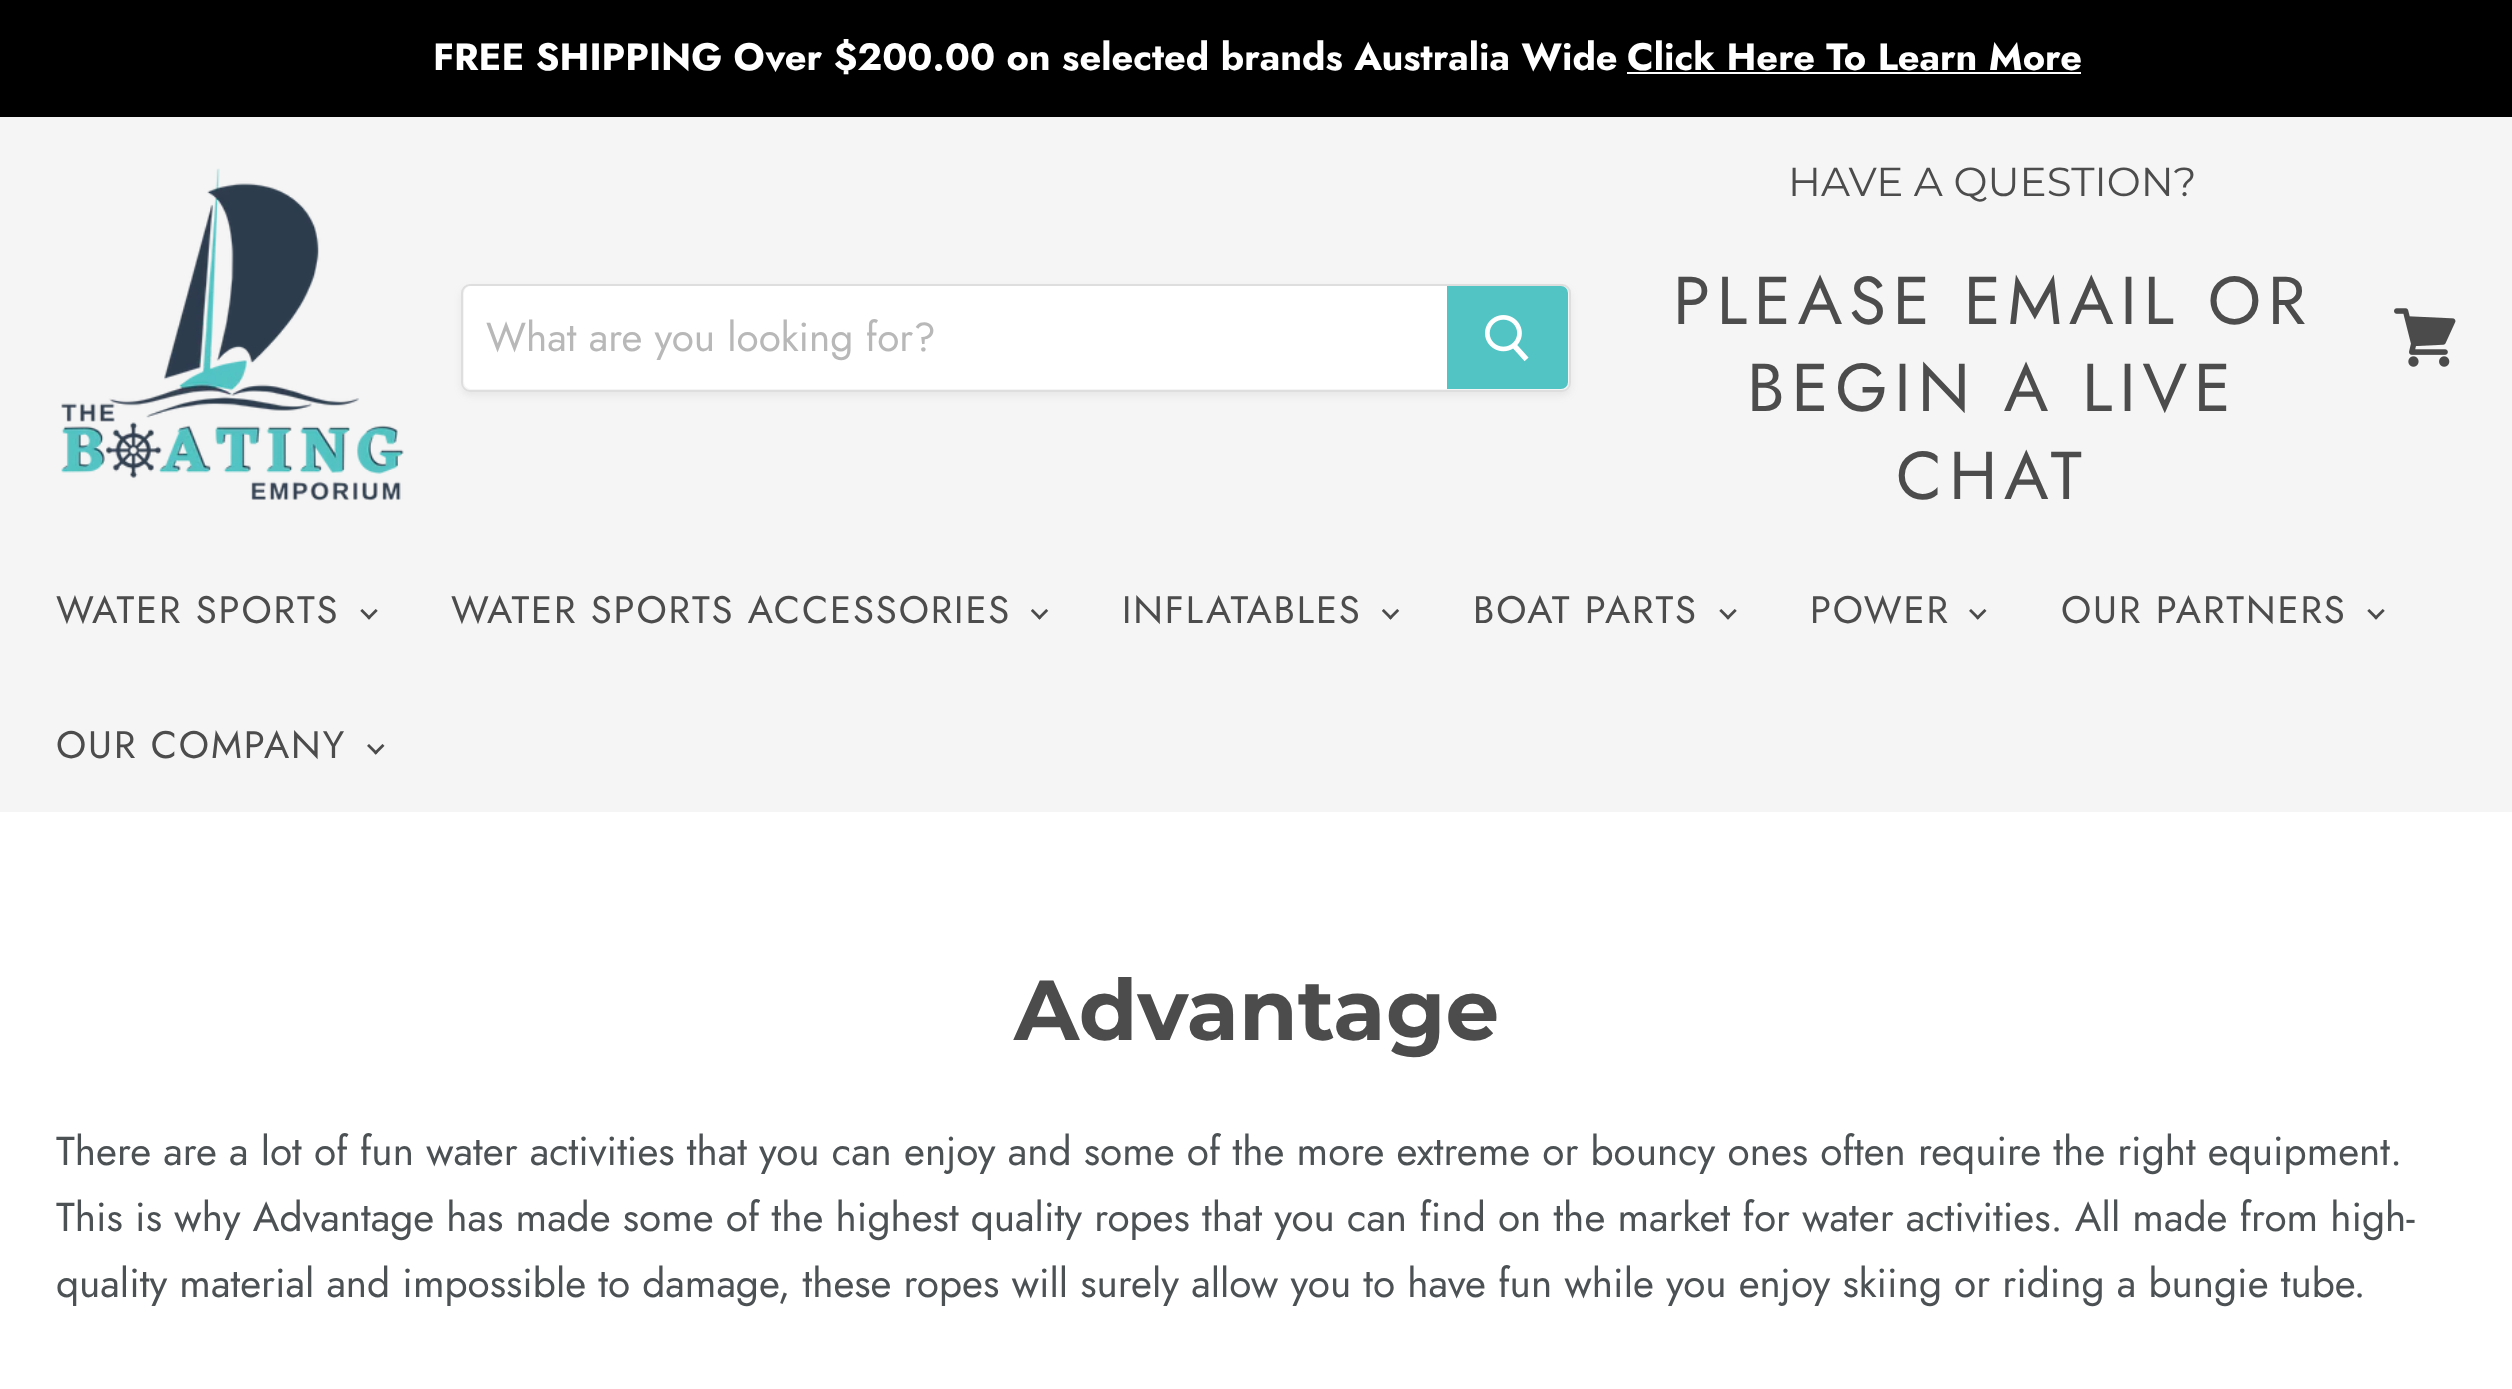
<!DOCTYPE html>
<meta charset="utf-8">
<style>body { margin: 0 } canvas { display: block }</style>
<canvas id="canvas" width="2512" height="1389"></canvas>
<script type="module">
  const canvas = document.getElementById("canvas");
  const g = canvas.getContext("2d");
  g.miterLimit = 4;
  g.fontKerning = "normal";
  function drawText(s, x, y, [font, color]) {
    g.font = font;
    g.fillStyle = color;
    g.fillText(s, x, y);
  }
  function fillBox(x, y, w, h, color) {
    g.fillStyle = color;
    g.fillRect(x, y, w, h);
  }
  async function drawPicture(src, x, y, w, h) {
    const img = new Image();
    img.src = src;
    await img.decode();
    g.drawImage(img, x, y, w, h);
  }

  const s1 = ["bold 38px Jost", "#FFFFFF"];
  const s2 = ["40.5px Jost", "#B8B8B8"];
  const s3 = ["40.5px Montserrat", "#4C4C4C"];
  const s4 = ["67.5px Jost", "#4C4C4C"];
  const s5 = ["38.25px Jost", "#4C4C4C"];
  const s6 = ["bold 85px Montserrat", "#4C4C4C"];
  const s7 = ["40.5px Jost", "#4C5154"];

  fillBox(0, 0, 2512, 1389, "#FFFFFF");
  fillBox(0, 0, 2512, 117, "#000000");
  drawText("FREE SHIPPING Over $200.00 on selected brands Australia Wide", 433, 70, s1);
  drawText("Click Here To Learn More", 1627, 70, s1);
  fillBox(1627, 72, 454, 2, "#FFFFFF");
  fillBox(0, 117, 2512, 695, "#F5F5F5");
  await drawPicture("pic1.png", 61, 168, 343, 333);
  g.save();
  g.beginPath();
  g.moveTo(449, 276);
  g.lineTo(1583, 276);
  g.lineTo(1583, 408);
  g.lineTo(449, 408);
  g.closePath();
  g.moveTo(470, 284);
  g.lineTo(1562, 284);
  g.bezierCurveTo(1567, 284, 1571, 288, 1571, 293);
  g.lineTo(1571, 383);
  g.bezierCurveTo(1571, 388, 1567, 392, 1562, 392);
  g.lineTo(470, 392);
  g.bezierCurveTo(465, 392, 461, 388, 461, 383);
  g.lineTo(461, 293);
  g.bezierCurveTo(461, 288, 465, 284, 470, 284);
  g.closePath();
  g.clip("evenodd");
  g.fillStyle = "rgba(128, 128, 128, 0.11)";
  g.filter = "blur(3.5px)";
  g.beginPath();
  g.roundRect(461, 288, 1110, 108, 9);
  g.fill();
  g.filter = "none";
  g.restore();
  g.beginPath();
  g.roundRect(462, 285, 1108, 106, 8);
  g.strokeStyle = "rgba(128, 128, 128, 0.2)";
  g.lineWidth = 2;
  g.stroke();
  g.fillStyle = "#FFFFFF";
  g.beginPath();
  g.roundRect(464, 286, 983, 103, [7, 0, 0, 7]);
  g.fill();
  drawText("What are you looking for?", 486, 351, s2);
  g.fillStyle = "#52C4C4";
  g.beginPath();
  g.roundRect(1448, 287, 119, 101, [0, 6, 6, 0]);
  g.fill();
  g.strokeStyle = "#52C4C4";
  g.stroke();
  await drawPicture("pic2.png", 1485, 315, 44, 47);
  drawText("HAVE A QUESTION?", 1788, 196, s3);
  g.letterSpacing = "6.75px";
  drawText("PLEASE EMAIL OR", 1673, 324, s4);
  drawText("BEGIN A LIVE", 1747, 411, s4);
  drawText("CHAT", 1896, 499, s4);
  await drawPicture("pic3.png", 2394, 308, 62, 59);
  g.letterSpacing = "1.9px";
  drawText("WATER SPORTS", 56, 623, s5);
  await drawPicture("pic4.png", 360, 609, 18, 11);
  drawText("WATER SPORTS ACCESSORIES", 451, 623, s5);
  await drawPicture("pic5.png", 1031, 609, 18, 11);
  drawText("INFLATABLES", 1122, 623, s5);
  await drawPicture("pic5.png", 1382, 609, 18, 11);
  drawText("BOAT PARTS", 1473, 623, s5);
  await drawPicture("pic4.png", 1719, 609, 18, 11);
  drawText("POWER", 1810, 623, s5);
  await drawPicture("pic6.png", 1969, 609, 18, 11);
  drawText("OUR PARTNERS", 2061, 623, s5);
  await drawPicture("pic4.png", 2367, 609, 18, 11);
  drawText("OUR COMPANY", 56, 758, s5);
  await drawPicture("pic6.png", 367, 744, 18, 11);
  g.letterSpacing = "0px";
  drawText("Advantage", 1014, 1040, s6);
  drawText("There are a lot of fun water activities that you can enjoy and some of the more extreme or bouncy ones often require the right equipment.", 56, 1165, s7);
  drawText("This is why Advantage has made some of the highest quality ropes that you can find on the market for water activities. All made from high-", 56, 1231, s7);
  drawText("quality material and impossible to damage, these ropes will surely allow you to have fun while you enjoy skiing or riding a bungie tube.", 56, 1297, s7);
</script>
